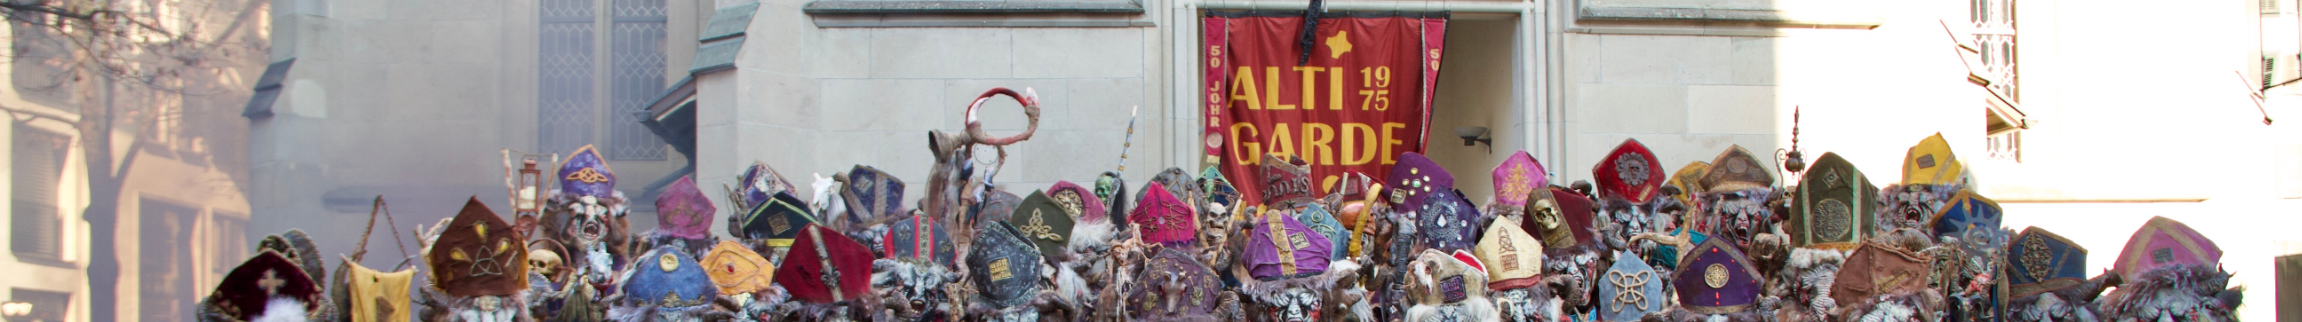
<!DOCTYPE html>
<meta charset="utf-8">
<style>body { margin: 0 } canvas { display: block }</style>
<canvas id="canvas" width="2302" height="322"></canvas>
<script type="module">
  const canvas = document.getElementById("canvas");
  const g = canvas.getContext("2d");
  g.miterLimit = 4;
  g.fontKerning = "normal";
  function fillBox(x, y, w, h, color) {
    g.fillStyle = color;
    g.fillRect(x, y, w, h);
  }
  async function drawPicture(src, x, y, w, h) {
    const img = new Image();
    img.src = src;
    await img.decode();
    g.drawImage(img, x, y, w, h);
  }

  fillBox(0, 0, 2302, 322, "#FFFFFF");
  await drawPicture("pic1.png", 0, 0, 2302, 322);
</script>
